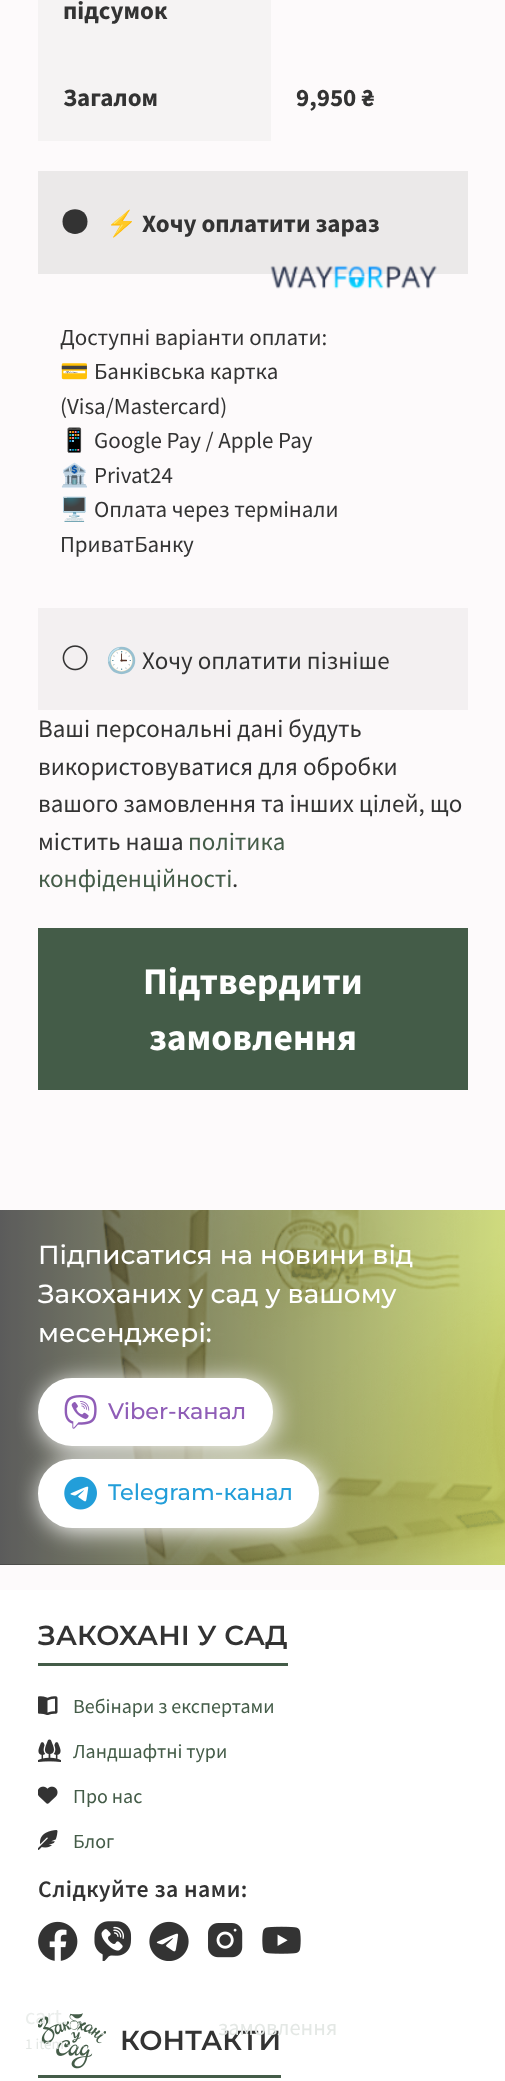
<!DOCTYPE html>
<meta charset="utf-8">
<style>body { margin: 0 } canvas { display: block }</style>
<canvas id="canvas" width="505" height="2081"></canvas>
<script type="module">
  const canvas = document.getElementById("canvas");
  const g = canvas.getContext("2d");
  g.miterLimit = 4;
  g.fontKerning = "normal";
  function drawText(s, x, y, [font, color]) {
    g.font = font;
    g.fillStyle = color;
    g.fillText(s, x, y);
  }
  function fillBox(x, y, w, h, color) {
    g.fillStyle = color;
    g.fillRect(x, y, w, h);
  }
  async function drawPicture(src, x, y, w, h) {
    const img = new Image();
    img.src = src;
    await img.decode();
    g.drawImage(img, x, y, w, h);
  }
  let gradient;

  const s1 = ["bold 25px Source Sans Pro", "#333333"];
  const s2 = ["bold 25px Noto Color Emoji", "#333333"];
  const s3 = ["23px Source Sans Pro", "#333333"];
  const s4 = ["23px Noto Color Emoji", "#333333"];
  const s5 = ["25px Noto Color Emoji", "#333333"];
  const s6 = ["25px Source Sans Pro", "#333333"];
  const s7 = ["25px Source Sans Pro", "#445C48"];
  const s8 = ["bold 37.5px Source Sans Pro", "#FFFFFF"];
  const s9 = ["500 26.25px Montserrat", "#FFFFFF"];
  const s10 = ["500 22.5px Montserrat", "#8F5DB7"];
  const s11 = ["500 22.5px Montserrat", "#229ED9"];
  const s12 = ["600 27.5px Montserrat", "#333333"];
  const s13 = ["20px Source Sans Pro", "#445C48"];
  const s14 = ["600 23.75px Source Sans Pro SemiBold", "#333333"];
  const s15 = ["22.5px Source Sans Pro", "#EBEEEC"];
  const s16 = ["15px Source Sans Pro", "#E4E8E5"];
  const s17 = ["22.5px Source Sans Pro", "#E4E8E5"];

  fillBox(0, 0, 505, 2081, "#FDFAFB");
  fillBox(38, 0, 233, 141, "#F5F3F3");
  drawText("підсумок", 63, 19, s1);
  drawText("Загалом", 63, 106, s1);
  drawText("9,950 ₴", 296, 106, s1);
  fillBox(38, 171, 430, 103, "#EBE9E9");
  g.fillStyle = "#333333";
  g.beginPath();
  g.moveTo(62.5, 221.5);
  g.bezierCurveTo(62.5, 238, 87.5, 238, 87.5, 221.5);
  g.bezierCurveTo(87.5, 205, 62.5, 205, 62.5, 221.5);
  g.closePath();
  g.fill();
  drawText("⚡", 106, 232, s2);
  drawText("Хочу оплатити зараз", 142, 232, s1);
  await drawPicture("pic1.png", 270, 265, 167, 24);
  drawText("Доступні варіанти оплати:", 60, 345, s3);
  drawText("💳", 60, 379, s4);
  drawText("Банківська картка", 94, 379, s3);
  drawText("(Visa/Mastercard)", 60, 414, s3);
  drawText("📱", 60, 448, s4);
  drawText("Google Pay / Apple Pay", 94, 448, s3);
  drawText("🏦", 60, 483, s4);
  drawText("Privat24", 94, 483, s3);
  drawText("🖥️", 60, 517, s4);
  drawText("Оплата через термінали", 94, 517, s3);
  drawText("ПриватБанку", 60, 552, s3);
  fillBox(38, 608, 430, 102, "#F3F0F1");
  await drawPicture("pic2.png", 62, 645, 26, 26);
  drawText("🕒", 106, 669, s5);
  drawText("Хочу оплатити пізніше", 142, 669, s6);
  drawText("Ваші персональні дані будуть", 38, 737, s6);
  drawText("використовуватися для обробки", 38, 775, s6);
  drawText("вашого замовлення та інших цілей, що", 38, 812, s6);
  drawText("містить наша", 38, 850, s6);
  drawText("політика", 188, 850, s7);
  drawText("конфіденційності", 38, 887, s7);
  drawText(".", 232, 887, s6);
  fillBox(38, 928, 430, 162, "#445C48");
  drawText("Підтвердити", 143, 994, s8);
  drawText("замовлення", 149, 1050, s8);
  gradient = g.createLinearGradient(0, 1388, 505, 1388);
  gradient.addColorStop(0, "#333333");
  gradient.addColorStop(1, "#C5D566");
  g.fillStyle = gradient;
  g.fillRect(0, 1210, 505, 355);
  await drawPicture("pic3.png", 0, 1210, 505, 355);
  drawText("Підписатися на новини від", 38, 1264, s9);
  drawText("Закоханих у сад у вашому", 38, 1303, s9);
  drawText("месенджері:", 38, 1342, s9);
  g.filter = "blur(12.5px)";
  g.beginPath();
  g.roundRect(41, 1381, 235, 69, 34.5);
  g.fill();
  g.filter = "none";
  g.beginPath();
  g.roundRect(39.5, 1379.5, 232, 65, 32.5);
  g.fill();
  g.strokeStyle = "#FFFFFF";
  g.lineWidth = 3;
  g.stroke();
  g.filter = "blur(12.5px)";
  g.beginPath();
  g.roundRect(41, 1463, 282, 68, 34);
  g.fill();
  g.filter = "none";
  await drawPicture("pic4.png", 64, 1395, 33, 34);
  drawText("Viber-канал", 108, 1419, s10);
  g.fillStyle = "#FFFFFF";
  g.beginPath();
  g.roundRect(39.5, 1460.5, 278, 66, 33);
  g.fill();
  g.stroke();
  await drawPicture("pic5.png", 64, 1476, 33, 34);
  drawText("Telegram-канал", 108, 1500, s11);
  fillBox(0, 1590, 505, 491, "#FFFFFF");
  fillBox(38, 1663, 250, 3, "#445C48");
  drawText("ЗАКОХАНІ У САД", 38, 1645, s12);
  await drawPicture("pic6.png", 38, 1696, 20, 19);
  drawText("Вебінари з експертами", 73, 1713, s13);
  await drawPicture("pic7.png", 38, 1739, 23, 23);
  drawText("Ландшафтні тури", 73, 1758, s13);
  await drawPicture("pic8.png", 38, 1786, 20, 18);
  drawText("Про нас", 73, 1803, s13);
  await drawPicture("pic9.png", 38, 1830, 20, 20);
  drawText("Блог", 73, 1848, s13);
  g.letterSpacing = "0.5px";
  drawText("Слідкуйте за нами:", 38, 1897, s14);
  await drawPicture("pic10.png", 38, 1921, 40, 40);
  await drawPicture("pic11.png", 94, 1921, 38, 40);
  await drawPicture("pic12.png", 149, 1921, 40, 40);
  await drawPicture("pic13.png", 208, 1923, 35, 35);
  await drawPicture("pic14.png", 262, 1926, 39, 28);
  fillBox(38, 2075, 243, 3, "#445C48");
  await drawPicture("pic15.png", 38, 2013, 68, 56);
  g.letterSpacing = "0px";
  drawText("КОНТАКТИ", 120, 2050, s12);
  drawText("cart.", 25, 2024, s15);
  drawText("1 item -", 25, 2049, s16);
  drawText("замовлення", 218, 2035, s17);
</script>
